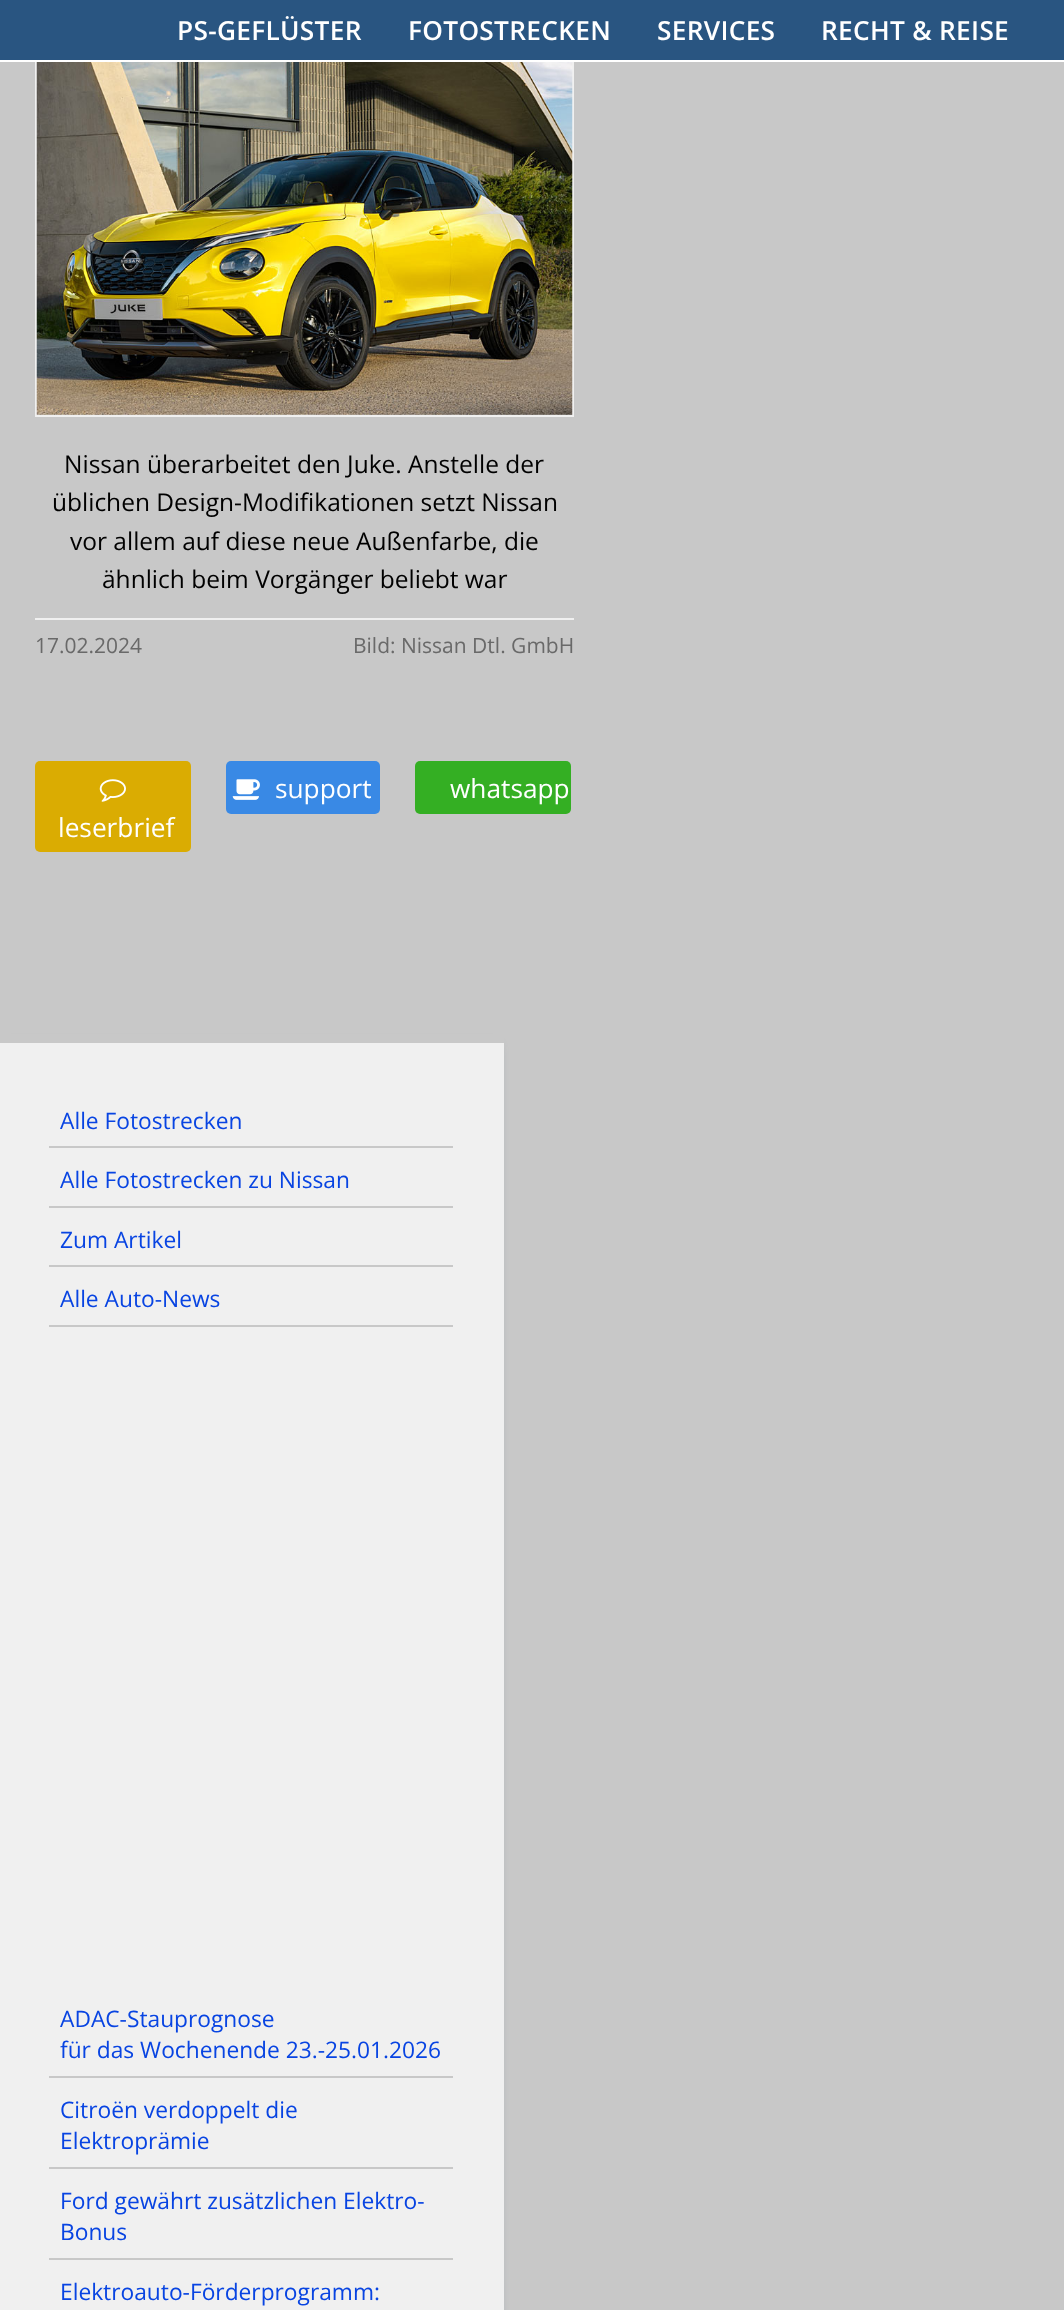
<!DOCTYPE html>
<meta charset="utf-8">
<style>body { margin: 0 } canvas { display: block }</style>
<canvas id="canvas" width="1064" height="2310"></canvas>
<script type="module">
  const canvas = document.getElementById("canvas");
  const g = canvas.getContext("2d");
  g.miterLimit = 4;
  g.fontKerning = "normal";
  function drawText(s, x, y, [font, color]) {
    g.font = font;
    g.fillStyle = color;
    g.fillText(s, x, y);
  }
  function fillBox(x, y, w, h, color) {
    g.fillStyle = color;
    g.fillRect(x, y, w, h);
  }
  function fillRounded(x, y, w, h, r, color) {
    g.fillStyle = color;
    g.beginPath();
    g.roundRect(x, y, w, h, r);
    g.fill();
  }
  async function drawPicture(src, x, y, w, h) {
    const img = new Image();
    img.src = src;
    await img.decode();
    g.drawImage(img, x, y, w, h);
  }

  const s1 = ["600 26.25px Open Sans", "#FFFFFF"];
  const s2 = ["24.5px Open Sans", "#000000"];
  const s3 = ["21px Open Sans", "#696969"];
  const s4 = ["26.25px Open Sans", "#FFFFFF"];
  const s5 = ["22.75px Open Sans", "#0844E2"];

  fillBox(0, 0, 1064, 2310, "#C8C8C8");
  g.strokeStyle = "#F0F0F0";
  g.lineWidth = 2;
  g.strokeRect(36, 57, 537, 359);
  fillBox(0, 0, 1064, 60, "#295581");
  fillBox(0, 60, 1064, 2, "#FFFFFF");
  g.letterSpacing = "0.3px";
  drawText("PS-GEFLÜSTER", 177, 40, s1);
  drawText("FOTOSTRECKEN", 408, 40, s1);
  drawText("SERVICES", 657, 40, s1);
  drawText("RECHT & REISE", 821, 40, s1);
  await drawPicture("pic1.png", 36, 62, 537, 353);
  g.letterSpacing = "0px";
  drawText("Nissan überarbeitet den Juke. Anstelle der", 64, 473, s2);
  drawText("üblichen Design-Modifikationen setzt Nissan", 52, 511, s2);
  drawText("vor allem auf diese neue Außenfarbe, die", 70, 550, s2);
  drawText("ähnlich beim Vorgänger beliebt war", 102, 588, s2);
  fillBox(35, 618, 539, 2, "#F0F0F0");
  drawText("17.02.2024", 35, 653, s3);
  drawText("Bild: Nissan Dtl. GmbH", 353, 653, s3);
  fillRounded(226, 761, 154, 53, 5, "#3989E5");
  await drawPicture("pic2.png", 232, 779, 28, 21);
  drawText("support", 275, 798, s4);
  fillRounded(415, 761, 156, 53, 5, "#34AF23");
  drawText("whatsapp", 450, 798, s4);
  fillRounded(35, 761, 156, 91, 5, "#DAAC02");
  await drawPicture("pic3.png", 99, 779, 27, 23);
  drawText("leserbrief", 58, 837, s4);
  g.fillStyle = "#295581";
  g.filter = "blur(6px)";
  g.beginPath();
  g.rect(9, 1047, 486, 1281);
  g.fill();
  g.filter = "none";
  fillBox(0, 1043, 504, 1267, "#F0F0F0");
  fillBox(0, 1034, 504, 9, "#C8C8C8");
  fillBox(49, 1146, 404, 2, "#C8C8C8");
  drawText("Alle Fotostrecken", 60, 1129, s5);
  fillBox(49, 1206, 404, 2, "#C8C8C8");
  drawText("Alle Fotostrecken zu Nissan", 60, 1188, s5);
  fillBox(49, 1265, 404, 2, "#C8C8C8");
  drawText("Zum Artikel", 60, 1248, s5);
  fillBox(49, 1325, 404, 2, "#C8C8C8");
  drawText("Alle Auto-News", 60, 1307, s5);
  fillBox(49, 2076, 404, 2, "#C8C8C8");
  drawText("ADAC-Stauprognose", 60, 2027, s5);
  drawText("für das Wochenende 23.-25.01.2026", 60, 2058, s5);
  fillBox(49, 2167, 404, 2, "#C8C8C8");
  drawText("Citroën verdoppelt die", 60, 2118, s5);
  drawText("Elektroprämie", 60, 2149, s5);
  fillBox(49, 2258, 404, 2, "#C8C8C8");
  drawText("Ford gewährt zusätzlichen Elektro-", 60, 2209, s5);
  drawText("Bonus", 60, 2240, s5);
  drawText("Elektroauto-Förderprogramm:", 60, 2300, s5);
</script>
